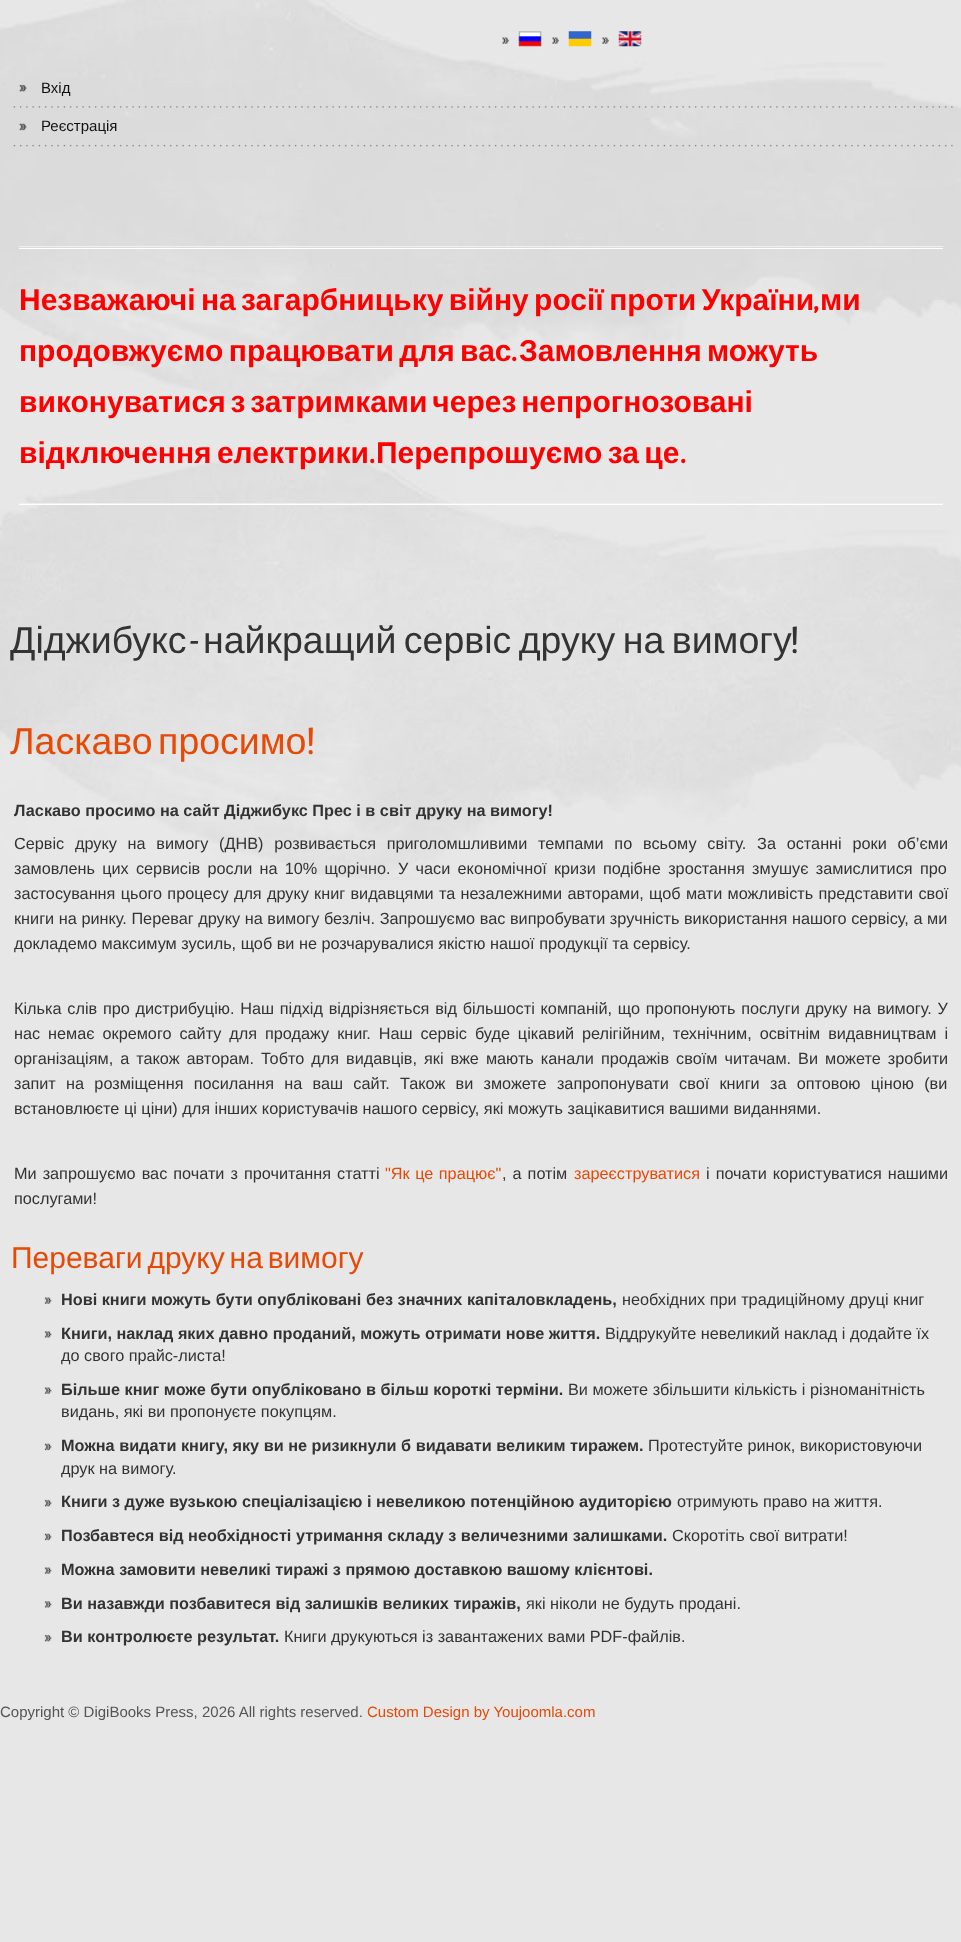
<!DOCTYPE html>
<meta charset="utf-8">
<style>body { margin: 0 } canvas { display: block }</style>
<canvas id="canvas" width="961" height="1942"></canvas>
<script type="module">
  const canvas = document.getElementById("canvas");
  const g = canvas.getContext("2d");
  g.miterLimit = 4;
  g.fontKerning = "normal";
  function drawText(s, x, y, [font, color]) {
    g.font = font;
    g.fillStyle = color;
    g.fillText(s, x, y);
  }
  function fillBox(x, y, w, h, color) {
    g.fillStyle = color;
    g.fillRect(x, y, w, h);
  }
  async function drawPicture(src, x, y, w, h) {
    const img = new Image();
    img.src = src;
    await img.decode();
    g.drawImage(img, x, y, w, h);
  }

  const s1 = ["15px Liberation Sans", "#111111"];
  const s2 = ["bold 30px Liberation Sans", "#FF0000"];
  const s3 = ["bold 30px Yanone Kaffeesatz", "#FF0000"];
  const s4 = ["37.5px Liberation Sans", "#333333"];
  const s5 = ["37.5px Yanone Kaffeesatz", "#333333"];
  const s6 = ["37.5px Liberation Sans", "#E74907"];
  const s7 = ["37.5px Yanone Kaffeesatz", "#E74907"];
  const s8 = ["bold 16.25px Liberation Sans", "#333333"];
  const s9 = ["16.25px Liberation Sans", "#333333"];
  const s10 = ["16.25px Liberation Sans", "#E74907"];
  const s11 = ["30px Liberation Sans", "#E74907"];
  const s12 = ["15px Liberation Sans", "#555555"];
  const s13 = ["15px Liberation Sans", "#E74907"];

  fillBox(0, 0, 961, 1942, "#E7E7E7");
  await drawPicture("pic1.png", 0, 0, 961, 880);
  await drawPicture("pic2.png", 502, 37, 7, 7);
  await drawPicture("pic3.png", 518, 31, 24, 16);
  await drawPicture("pic2.png", 552, 37, 7, 7);
  await drawPicture("pic4.png", 568, 31, 24, 16);
  await drawPicture("pic5.png", 602, 37, 7, 7);
  await drawPicture("pic6.png", 618, 31, 24, 16);
  await drawPicture("pic7.png", 13, 84, 940, 24);
  drawText("Вхід", 41, 93, s1);
  await drawPicture("pic8.png", 13, 123, 940, 24);
  drawText("Реєстрація", 41, 131, s1);
  fillBox(19, 246, 924, 1, "#EEEEEE");
  fillBox(19, 248, 924, 1, "#FFFFFF");
  g.wordSpacing = "-3px";
  drawText("Незважаючі на загарбницьку війну росії проти України", 19, 310, s2);
  g.wordSpacing = "0px";
  drawText(",", 813, 310, s3);
  drawText("ми", 820, 310, s2);
  g.wordSpacing = "-3px";
  drawText("продовжуємо працювати для вас", 19, 361, s2);
  g.wordSpacing = "0px";
  drawText(".", 511, 361, s3);
  g.wordSpacing = "-3px";
  drawText("Замовлення можуть", 519, 361, s2);
  g.wordSpacing = "-3.5px";
  drawText("виконуватися з затримками через непрогнозовані", 19, 412, s2);
  g.wordSpacing = "-3px";
  drawText("відключення електрики", 19, 463, s2);
  g.wordSpacing = "0px";
  drawText(".", 369, 463, s3);
  g.wordSpacing = "-3px";
  drawText("Перепрошуємо за це", 376, 463, s2);
  g.wordSpacing = "0px";
  drawText(".", 680, 463, s3);
  fillBox(19, 503, 924, 1, "#EEEEEE");
  fillBox(19, 504, 924, 1, "#FFFFFF");
  drawText("Діджибукс", 10, 653, s4);
  drawText("-", 189, 653, s5);
  g.wordSpacing = "-3px";
  drawText("найкращий сервіс друку на вимогу", 203, 653, s4);
  g.wordSpacing = "0px";
  drawText("!", 791, 653, s5);
  g.wordSpacing = "-5px";
  drawText("Ласкаво просимо", 10, 754, s6);
  g.wordSpacing = "0px";
  drawText("!", 307, 754, s7);
  drawText("Ласкаво просимо на сайт Діджибукс Прес і в світ друку на вимогу!", 14, 816, s8);
  g.wordSpacing = "6.25px";
  drawText("Сервіс друку на вимогу (ДНВ) розвивається приголомшливими темпами по всьому світу. За останні роки об’єми", 14, 849, s9);
  g.wordSpacing = "2.75px";
  drawText("замовлень цих сервисів росли на 10% щорічно.", 14, 874, s9);
  drawText("У часи економічної кризи подібне зростання змушує замислитися про", 398, 874, s9);
  g.wordSpacing = "0.75px";
  drawText("застосування цього процесу для друку книг видавцями та незалежними авторами, щоб мати можливість представити свої", 14, 899, s9);
  g.wordSpacing = "0.1px";
  drawText("книги на ринку. Переваг друку на вимогу безліч. Запрошуємо вас випробувати зручність використання нашого сервісу, а ми", 14, 924, s9);
  g.wordSpacing = "0px";
  drawText("докладемо максимум зусиль, щоб ви не розчарувалися якістю нашої продукції та сервісу.", 14, 949, s9);
  g.wordSpacing = "1.25px";
  drawText("Кілька слів про дистрибуцію. Наш підхід відрізняється від більшості компаній, що пропонують послуги друку на вимогу. У", 14, 1014, s9);
  g.wordSpacing = "3.4px";
  drawText("нас немає окремого сайту для продажу книг. Наш сервіс буде цікавий релігійним, технічним, освітнім видавництвам і", 14, 1039, s9);
  g.wordSpacing = "2.5px";
  drawText("організаціям, а також авторам. Тобто для видавців, які вже мають канали продажів своїм читачам. Ви можете зробити", 14, 1064, s9);
  g.wordSpacing = "5.75px";
  drawText("запит на розміщення посилання на ваш сайт. Також ви зможете запропонувати свої книги за оптовою ціною (ви", 14, 1089, s9);
  g.wordSpacing = "0px";
  drawText("встановлюєте ці ціни) для інших користувачів нашого сервісу, які можуть зацікавитися вашими виданнями.", 14, 1114, s9);
  g.wordSpacing = "1.5px";
  drawText("Ми запрошуємо вас почати з прочитання статті", 14, 1179, s9);
  g.wordSpacing = "1px";
  drawText("\"Як це працює\"", 385, 1179, s10);
  g.wordSpacing = "1.5px";
  drawText(", а потім", 502, 1179, s9);
  g.wordSpacing = "0px";
  drawText("зареєструватися", 574, 1179, s10);
  g.wordSpacing = "1.5px";
  drawText("і почати користуватися нашими", 706, 1179, s9);
  g.wordSpacing = "0px";
  drawText("послугами!", 14, 1204, s9);
  g.wordSpacing = "-3.5px";
  drawText("Переваги друку на вимогу", 11, 1268, s11);
  await drawPicture("pic9.png", 44, 1297, 8, 7);
  g.wordSpacing = "0px";
  drawText("Нові книги можуть бути опубліковані без значних капіталовкладень,", 61, 1305, s8);
  drawText("необхідних при традиційному друці книг", 622, 1305, s9);
  await drawPicture("pic10.png", 44, 1331, 8, 7);
  drawText("Книги, наклад яких давно проданий, можуть отримати нове життя.", 61, 1339, s8);
  drawText("Віддрукуйте невеликий наклад і додайте їх", 605, 1339, s9);
  drawText("до свого прайс-листа!", 61, 1361, s9);
  await drawPicture("pic9.png", 44, 1387, 8, 7);
  drawText("Більше книг може бути опубліковано в більш короткі терміни.", 61, 1395, s8);
  drawText("Ви можете збільшити кількість і різноманітність", 568, 1395, s9);
  drawText("видань, які ви пропонуєте покупцям.", 61, 1417, s9);
  await drawPicture("pic11.png", 44, 1443, 8, 8);
  drawText("Можна видати книгу, яку ви не ризикнули б видавати великим тиражем.", 61, 1451, s8);
  drawText("Протестуйте ринок, використовуючи", 648, 1451, s9);
  drawText("друк на вимогу.", 61, 1474, s9);
  await drawPicture("pic12.png", 44, 1499, 8, 8);
  drawText("Книги з дуже вузькою спеціалізацією і невеликою потенційною аудиторією", 61, 1507, s8);
  drawText("отримують право на життя.", 677, 1507, s9);
  await drawPicture("pic11.png", 44, 1533, 8, 8);
  drawText("Позбавтеся від необхідності утримання складу з величезними залишками.", 61, 1541, s8);
  drawText("Скоротіть свої витрати!", 672, 1541, s9);
  await drawPicture("pic9.png", 44, 1567, 8, 7);
  drawText("Можна замовити невеликі тиражі з прямою доставкою вашому клієнтові.", 61, 1575, s8);
  await drawPicture("pic10.png", 44, 1601, 8, 7);
  drawText("Ви назавжди позбавитеся від залишків великих тиражів,", 61, 1609, s8);
  drawText("які ніколи не будуть продані.", 526, 1609, s9);
  await drawPicture("pic12.png", 44, 1634, 8, 8);
  drawText("Ви контролюєте результат.", 61, 1642, s8);
  drawText("Книги друкуються із завантажених вами PDF-файлів.", 284, 1642, s9);
  drawText("Copyright © DigiBooks Press, 2026 All rights reserved.", 0, 1717, s12);
  drawText("Custom Design by Youjoomla.com", 367, 1717, s13);
</script>
